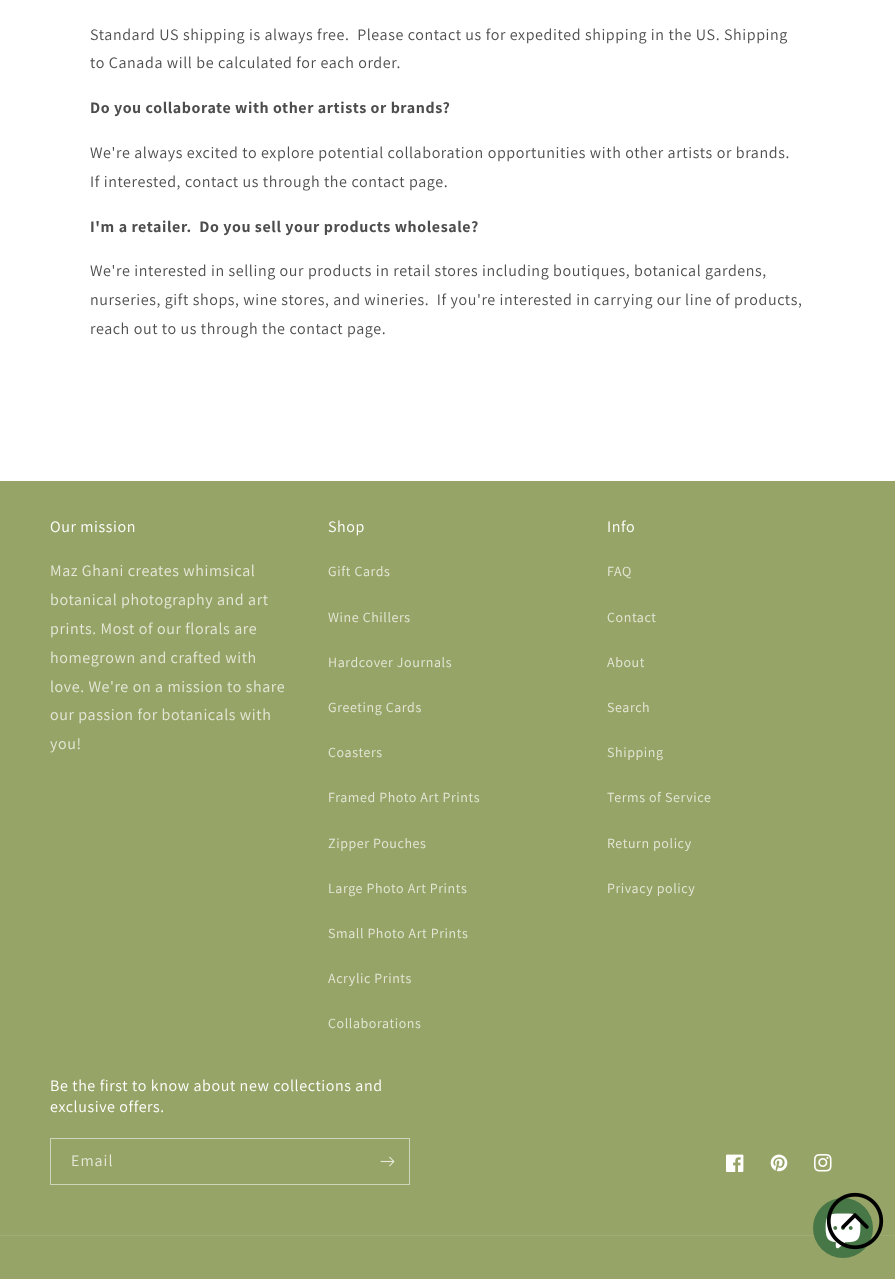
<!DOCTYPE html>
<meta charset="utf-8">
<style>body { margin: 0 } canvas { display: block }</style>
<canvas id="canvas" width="895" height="1279"></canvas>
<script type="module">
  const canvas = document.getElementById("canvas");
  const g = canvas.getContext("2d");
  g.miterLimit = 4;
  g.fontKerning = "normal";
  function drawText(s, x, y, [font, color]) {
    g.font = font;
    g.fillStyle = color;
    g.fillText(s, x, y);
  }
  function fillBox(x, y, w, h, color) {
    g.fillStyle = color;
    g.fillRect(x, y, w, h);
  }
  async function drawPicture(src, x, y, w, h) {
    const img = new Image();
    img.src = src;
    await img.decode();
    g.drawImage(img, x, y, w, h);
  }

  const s1 = ["16px Assistant", "#4D4D4D"];
  const s2 = ["bold 16px Assistant", "#4D4D4D"];
  const s3 = ["16px Assistant", "#FFFFFF"];
  const s4 = ["16px Assistant", "#E5E8D9"];
  const s5 = ["14px Assistant", "#E5E8D9"];

  fillBox(0, 0, 895, 1279, "#FFFFFF");
  g.letterSpacing = "0.6px";
  drawText("Standard US shipping is always free.  Please contact us for expedited shipping in the US. Shipping", 90, 40, s1);
  drawText("to Canada will be calculated for each order.", 90, 68, s1);
  drawText("Do you collaborate with other artists or brands?", 90, 113, s2);
  drawText("We're always excited to explore potential collaboration opportunities with other artists or brands.", 90, 158, s1);
  drawText("If interested, contact us through the contact page.", 90, 187, s1);
  drawText("I'm a retailer.  Do you sell your products wholesale?", 90, 232, s2);
  drawText("We're interested in selling our products in retail stores including boutiques, botanical gardens,", 90, 276, s1);
  drawText("nurseries, gift shops, wine stores, and wineries.  If you're interested in carrying our line of products,", 90, 305, s1);
  drawText("reach out to us through the contact page.", 90, 334, s1);
  fillBox(0, 481, 895, 798, "#97A467");
  drawText("Our mission", 50, 532, s3);
  drawText("Maz Ghani creates whimsical", 50, 576, s4);
  drawText("botanical photography and art", 50, 605, s4);
  drawText("prints. Most of our florals are", 50, 634, s4);
  drawText("homegrown and crafted with", 50, 663, s4);
  drawText("love. We're on a mission to share", 50, 692, s4);
  drawText("our passion for botanicals with", 50, 720, s4);
  drawText("you!", 50, 749, s4);
  drawText("Shop", 328, 532, s3);
  drawText("Gift Cards", 328, 576, s5);
  drawText("Wine Chillers", 328, 622, s5);
  drawText("Hardcover Journals", 328, 667, s5);
  drawText("Greeting Cards", 328, 712, s5);
  drawText("Coasters", 328, 757, s5);
  drawText("Framed Photo Art Prints", 328, 802, s5);
  drawText("Zipper Pouches", 328, 848, s5);
  drawText("Large Photo Art Prints", 328, 893, s5);
  drawText("Small Photo Art Prints", 328, 938, s5);
  drawText("Acrylic Prints", 328, 983, s5);
  drawText("Collaborations", 328, 1028, s5);
  drawText("Info", 607, 532, s3);
  drawText("FAQ", 607, 576, s5);
  drawText("Contact", 607, 622, s5);
  drawText("About", 607, 667, s5);
  drawText("Search", 607, 712, s5);
  drawText("Shipping", 607, 757, s5);
  drawText("Terms of Service", 607, 802, s5);
  drawText("Return policy", 607, 848, s5);
  drawText("Privacy policy", 607, 893, s5);
  drawText("Be the first to know about new collections and", 50, 1091, s3);
  drawText("exclusive offers.", 50, 1112, s3);
  g.strokeStyle = "#D0D6BB";
  g.strokeRect(50.5, 1138.5, 359, 46);
  g.letterSpacing = "1px";
  drawText("Email", 71, 1166, s4);
  await drawPicture("pic1.png", 380, 1156, 15, 11);
  await drawPicture("pic2.png", 726, 1154, 18, 18);
  await drawPicture("pic3.png", 770, 1154, 18, 18);
  await drawPicture("pic4.png", 814, 1154, 18, 18);
  fillBox(0, 1235, 895, 1, "#9FAB73");
  g.fillStyle = "#477647";
  g.beginPath();
  g.arc(843, 1228, 30, 0, Math.PI * 2);
  g.fill();
  await drawPicture("pic6.png", 825, 1213, 36, 36);
  await drawPicture("pic5.png", 826, 1192, 58, 58);
</script>
